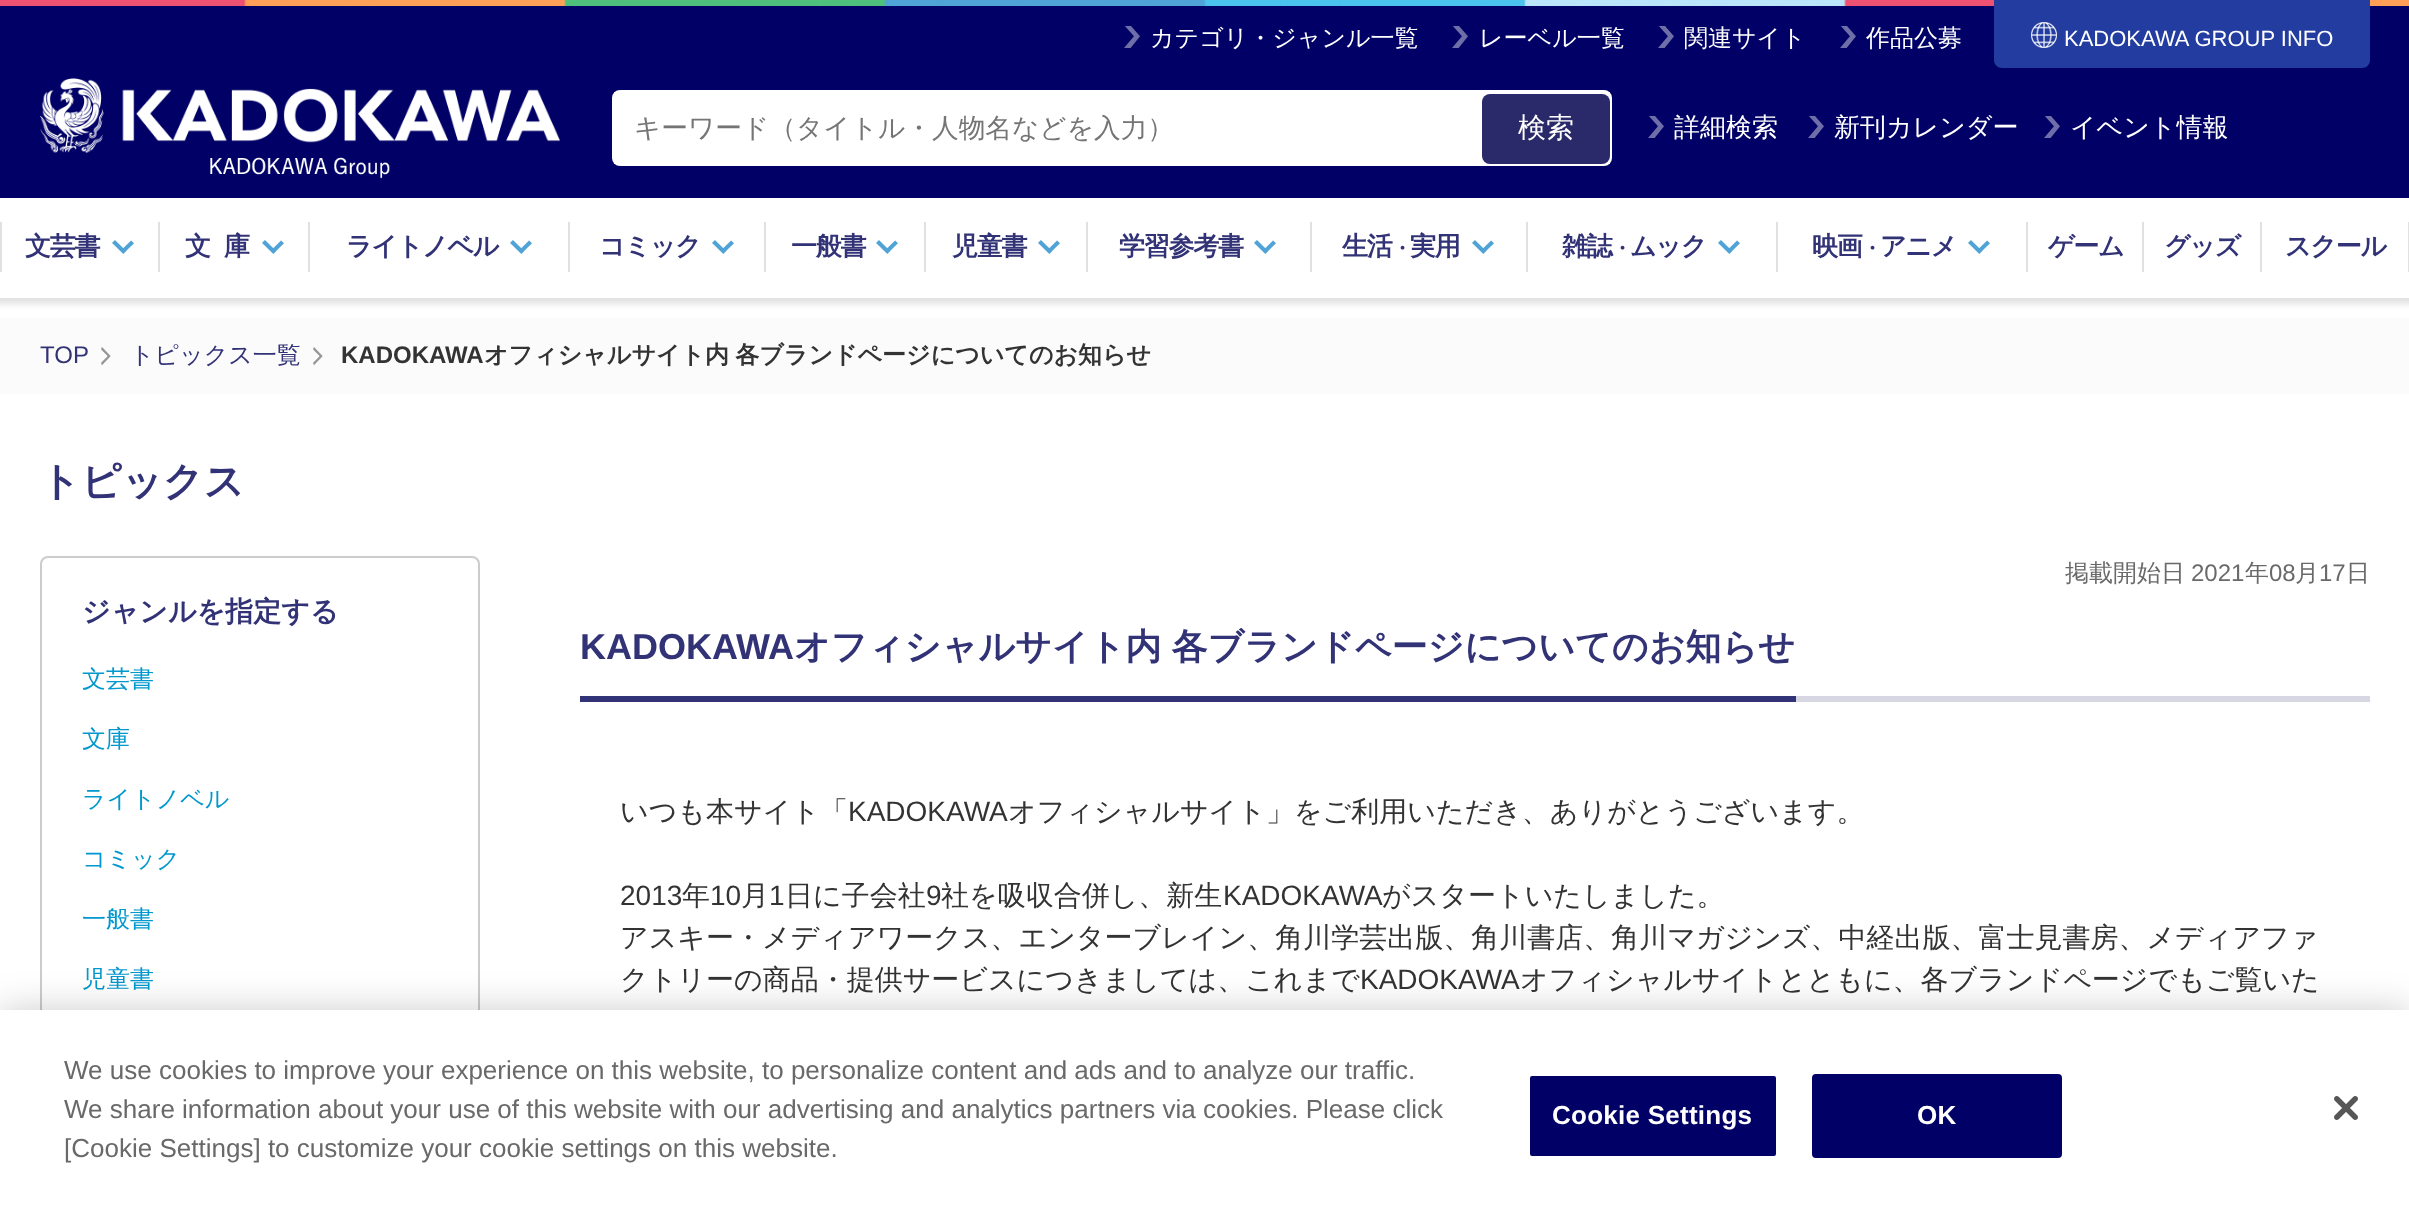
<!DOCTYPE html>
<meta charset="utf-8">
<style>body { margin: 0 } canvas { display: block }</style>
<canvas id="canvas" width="2409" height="1214"></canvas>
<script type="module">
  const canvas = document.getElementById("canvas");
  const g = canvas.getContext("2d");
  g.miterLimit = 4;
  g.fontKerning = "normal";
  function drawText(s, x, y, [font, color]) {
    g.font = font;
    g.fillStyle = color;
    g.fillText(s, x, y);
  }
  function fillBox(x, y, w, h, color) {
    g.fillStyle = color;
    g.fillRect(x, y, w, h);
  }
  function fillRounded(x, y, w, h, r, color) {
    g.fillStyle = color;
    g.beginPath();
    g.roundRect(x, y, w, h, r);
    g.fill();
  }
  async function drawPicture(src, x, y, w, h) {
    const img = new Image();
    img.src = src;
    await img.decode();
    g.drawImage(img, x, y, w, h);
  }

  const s1 = ["500 24px WenQuanYi Zen Hei", "#FFFFFF"];
  const s2 = ["22px Liberation Sans", "#FFFFFF"];
  const s3 = ["500 26.7px WenQuanYi Zen Hei", "#757575"];
  const s4 = ["500 28px WenQuanYi Zen Hei", "#FFFFFF"];
  const s5 = ["500 26px WenQuanYi Zen Hei", "#FFFFFF"];
  const s6 = ["bold 26px WenQuanYi Zen Hei", "#323276"];
  const s7 = ["bold 20px WenQuanYi Zen Hei", "#323276"];
  const s8 = ["24px Liberation Sans", "#323276"];
  const s9 = ["500 24px WenQuanYi Zen Hei", "#323276"];
  const s10 = ["bold 24px Liberation Sans", "#333333"];
  const s11 = ["bold 24px WenQuanYi Zen Hei", "#333333"];
  const s12 = ["bold 40px WenQuanYi Zen Hei", "#323276"];
  const s13 = ["bold 28px WenQuanYi Zen Hei", "#323276"];
  const s14 = ["500 24px WenQuanYi Zen Hei", "#0098CE"];
  const s15 = ["500 24px WenQuanYi Zen Hei", "#696969"];
  const s16 = ["24px Liberation Sans", "#696969"];
  const s17 = ["bold 36px Liberation Sans", "#323276"];
  const s18 = ["bold 36px WenQuanYi Zen Hei", "#323276"];
  const s19 = ["500 28px WenQuanYi Zen Hei", "#333333"];
  const s20 = ["28px Liberation Sans", "#333333"];
  const s21 = ["26.02px Liberation Sans", "#696969"];
  const s22 = ["bold 26.02px Liberation Sans", "#FFFFFF"];

  fillBox(0, 0, 2409, 1214, "#FFFFFF");
  g.fillStyle = "#E1E1E2";
  g.filter = "blur(3px)";
  g.beginPath();
  g.rect(-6, -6, 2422, 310);
  g.fill();
  g.filter = "none";
  fillBox(0, 6, 2409, 192, "#000066");
  await drawPicture("pic1.png", 0, 0, 2409, 6);
  await drawPicture("pic2.png", 1124, 26, 16, 22);
  drawText("カテゴリ・ジャンル一覧", 1150, 46, s1);
  await drawPicture("pic2.png", 1452, 26, 16, 22);
  drawText("レーベル一覧", 1479, 46, s1);
  await drawPicture("pic2.png", 1658, 26, 16, 22);
  drawText("関連サイト", 1684, 46, s1);
  await drawPicture("pic2.png", 1840, 26, 16, 22);
  drawText("作品公募", 1866, 46, s1);
  g.fillStyle = "#223CA0";
  g.beginPath();
  g.moveTo(1994, -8);
  g.lineTo(2370, -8);
  g.lineTo(2370, 60);
  g.bezierCurveTo(2370, 64.5, 2366.5, 68, 2362, 68);
  g.lineTo(2002, 68);
  g.bezierCurveTo(1997.5, 68, 1994, 64.5, 1994, 60);
  g.closePath();
  g.fill();
  await drawPicture("pic3.png", 2031, 22, 26, 26);
  drawText("KADOKAWA GROUP INFO", 2064, 46, s2);
  await drawPicture("pic4.png", 40, 78, 520, 75);
  await drawPicture("pic5.png", 210, 157, 180, 22);
  g.beginPath();
  g.roundRect(613, 91, 998, 74, 7);
  g.strokeStyle = "#FFFFFF";
  g.lineWidth = 2;
  g.stroke();
  fillBox(614, 92, 996, 72, "#FFFFFF");
  drawText("キーワード（タイトル・人物名などを入力）", 634, 137, s3);
  fillRounded(1482, 94, 128, 70, 8, "#2A2A6A");
  drawText("検索", 1518, 137, s4);
  await drawPicture("pic2.png", 1648, 116, 16, 22);
  drawText("詳細検索", 1674, 136, s5);
  await drawPicture("pic2.png", 1808, 116, 16, 22);
  drawText("新刊カレンダー", 1834, 136, s5);
  await drawPicture("pic2.png", 2044, 116, 16, 22);
  drawText("イベント情報", 2070, 136, s5);
  fillBox(0, 198, 2409, 100, "#FFFFFF");
  fillBox(0, 222, 2, 50, "#E1E1E2");
  fillBox(158, 222, 2, 50, "#E1E1E2");
  g.letterSpacing = "-1.25px";
  drawText("文芸書", 25, 255, s6);
  await drawPicture("pic6.png", 112, 240, 22, 14);
  fillBox(308, 222, 2, 50, "#E1E1E2");
  g.letterSpacing = "13px";
  drawText("文庫", 185, 255, s6);
  await drawPicture("pic6.png", 262, 240, 22, 14);
  fillBox(568, 222, 2, 50, "#E1E1E2");
  g.letterSpacing = "-1.25px";
  drawText("ライトノベル", 346, 255, s6);
  await drawPicture("pic6.png", 510, 240, 22, 14);
  fillBox(764, 222, 2, 50, "#E1E1E2");
  drawText("コミック", 599, 255, s6);
  await drawPicture("pic6.png", 712, 240, 22, 14);
  fillBox(924, 222, 2, 50, "#E1E1E2");
  drawText("一般書", 791, 255, s6);
  await drawPicture("pic6.png", 876, 240, 22, 14);
  fillBox(1086, 222, 2, 50, "#E1E1E2");
  drawText("児童書", 952, 255, s6);
  await drawPicture("pic6.png", 1038, 240, 22, 14);
  fillBox(1310, 222, 2, 50, "#E1E1E2");
  drawText("学習参考書", 1119, 255, s6);
  await drawPicture("pic6.png", 1254, 240, 22, 14);
  fillBox(1526, 222, 2, 50, "#E1E1E2");
  drawText("生活", 1342, 255, s6);
  drawText("・", 1392, 255, s7);
  drawText("実用", 1410, 255, s6);
  await drawPicture("pic6.png", 1472, 240, 22, 14);
  fillBox(1776, 222, 2, 50, "#E1E1E2");
  drawText("雑誌", 1562, 255, s6);
  drawText("・", 1612, 255, s7);
  drawText("ムック", 1630, 255, s6);
  await drawPicture("pic6.png", 1718, 240, 22, 14);
  fillBox(2026, 222, 2, 50, "#E1E1E2");
  drawText("映画", 1812, 255, s6);
  drawText("・", 1862, 255, s7);
  drawText("アニメ", 1880, 255, s6);
  await drawPicture("pic6.png", 1968, 240, 22, 14);
  fillBox(2142, 222, 2, 50, "#E1E1E2");
  drawText("ゲーム", 2048, 255, s6);
  fillBox(2260, 222, 2, 50, "#E1E1E2");
  drawText("グッズ", 2164, 255, s6);
  fillBox(2408, 222, 1, 50, "#E1E1E2");
  drawText("スクール", 2285, 255, s6);
  fillBox(0, 318, 2409, 76, "#FBFBFC");
  g.letterSpacing = "0px";
  drawText("TOP", 40, 363, s8);
  await drawPicture("pic7.png", 101, 347, 10, 19);
  drawText("トピックス一覧", 130, 363, s9);
  await drawPicture("pic7.png", 313, 347, 10, 19);
  drawText("KADOKAWA", 341, 363, s10);
  g.wordSpacing = "-1px";
  drawText("オフィシャルサイト内 各ブランドページについてのお知らせ", 484, 363, s11);
  g.wordSpacing = "0px";
  drawText("トピックス", 40, 495, s12);
  g.beginPath();
  g.roundRect(41, 557, 438, 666, 7);
  g.strokeStyle = "#CCCCCC";
  g.stroke();
  drawText("ジャンルを指定する", 82, 621, s13);
  drawText("文芸書", 82, 687, s14);
  drawText("文庫", 82, 747, s14);
  drawText("ライトノベル", 82, 807, s14);
  drawText("コミック", 82, 867, s14);
  drawText("一般書", 82, 927, s14);
  drawText("児童書", 82, 987, s14);
  drawText("掲載開始日", 2065, 581, s15);
  drawText("2021", 2191, 581, s16);
  drawText("年", 2245, 581, s15);
  drawText("08", 2269, 581, s16);
  drawText("月", 2295, 581, s15);
  drawText("17", 2319, 581, s16);
  drawText("日", 2346, 581, s15);
  fillBox(580, 696, 1216, 6, "#323276");
  drawText("KADOKAWA", 580, 659, s17);
  g.wordSpacing = "-1px";
  drawText("オフィシャルサイト内 各ブランドページについてのお知らせ", 794, 659, s18);
  fillBox(1796, 696, 574, 6, "#D6D7E3");
  g.wordSpacing = "0px";
  drawText("いつも本サイト「", 620, 821, s19);
  drawText("KADOKAWA", 848, 821, s20);
  drawText("オフィシャルサイト」をご利用いただき、ありがとうございます。", 1008, 821, s19);
  drawText("2013", 620, 905, s20);
  drawText("年", 682, 905, s19);
  drawText("10", 710, 905, s20);
  drawText("月", 741, 905, s19);
  drawText("1", 769, 905, s20);
  drawText("日に子会社", 785, 905, s19);
  drawText("9", 926, 905, s20);
  drawText("社を吸収合併し、新生", 941, 905, s19);
  drawText("KADOKAWA", 1223, 905, s20);
  drawText("がスタートいたしました。", 1382, 905, s19);
  drawText("アスキー・メディアワークス、エンターブレイン、角川学芸出版、角川書店、角川マガジンズ、中経出版、富士見書房、メディアファ", 620, 947, s19);
  drawText("クトリーの商品・提供サービスにつきましては、これまで", 620, 989, s19);
  drawText("KADOKAWA", 1360, 989, s20);
  drawText("オフィシャルサイトとともに、各ブランドページでもご覧いた", 1520, 989, s19);
  g.fillStyle = "rgba(0, 0, 0, 0.2)";
  g.filter = "blur(18px)";
  g.beginPath();
  g.rect(0, 1010, 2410, 204);
  g.fill();
  g.filter = "none";
  fillBox(0, 1010, 2409, 204, "#FFFFFF");
  drawText("We use cookies to improve your experience on this website, to personalize content and ads and to analyze our traffic.", 64, 1079, s21);
  drawText("We share information about your use of this website with our advertising and analytics partners via cookies. Please click", 64, 1118, s21);
  drawText("[Cookie Settings] to customize your cookie settings on this website.", 64, 1157, s21);
  g.fillStyle = "#000066";
  g.beginPath();
  g.roundRect(1529, 1075, 248, 82, 3);
  g.fill();
  g.strokeStyle = "#FFFFFF";
  g.stroke();
  g.letterSpacing = "0.25px";
  drawText("Cookie Settings", 1552, 1124, s22);
  g.fillStyle = "#000066";
  g.beginPath();
  g.roundRect(1813, 1075, 248, 82, 3);
  g.fill();
  g.strokeStyle = "#000066";
  g.stroke();
  drawText("OK", 1917, 1124, s22);
  await drawPicture("pic8.png", 2334, 1096, 24, 24);
</script>
